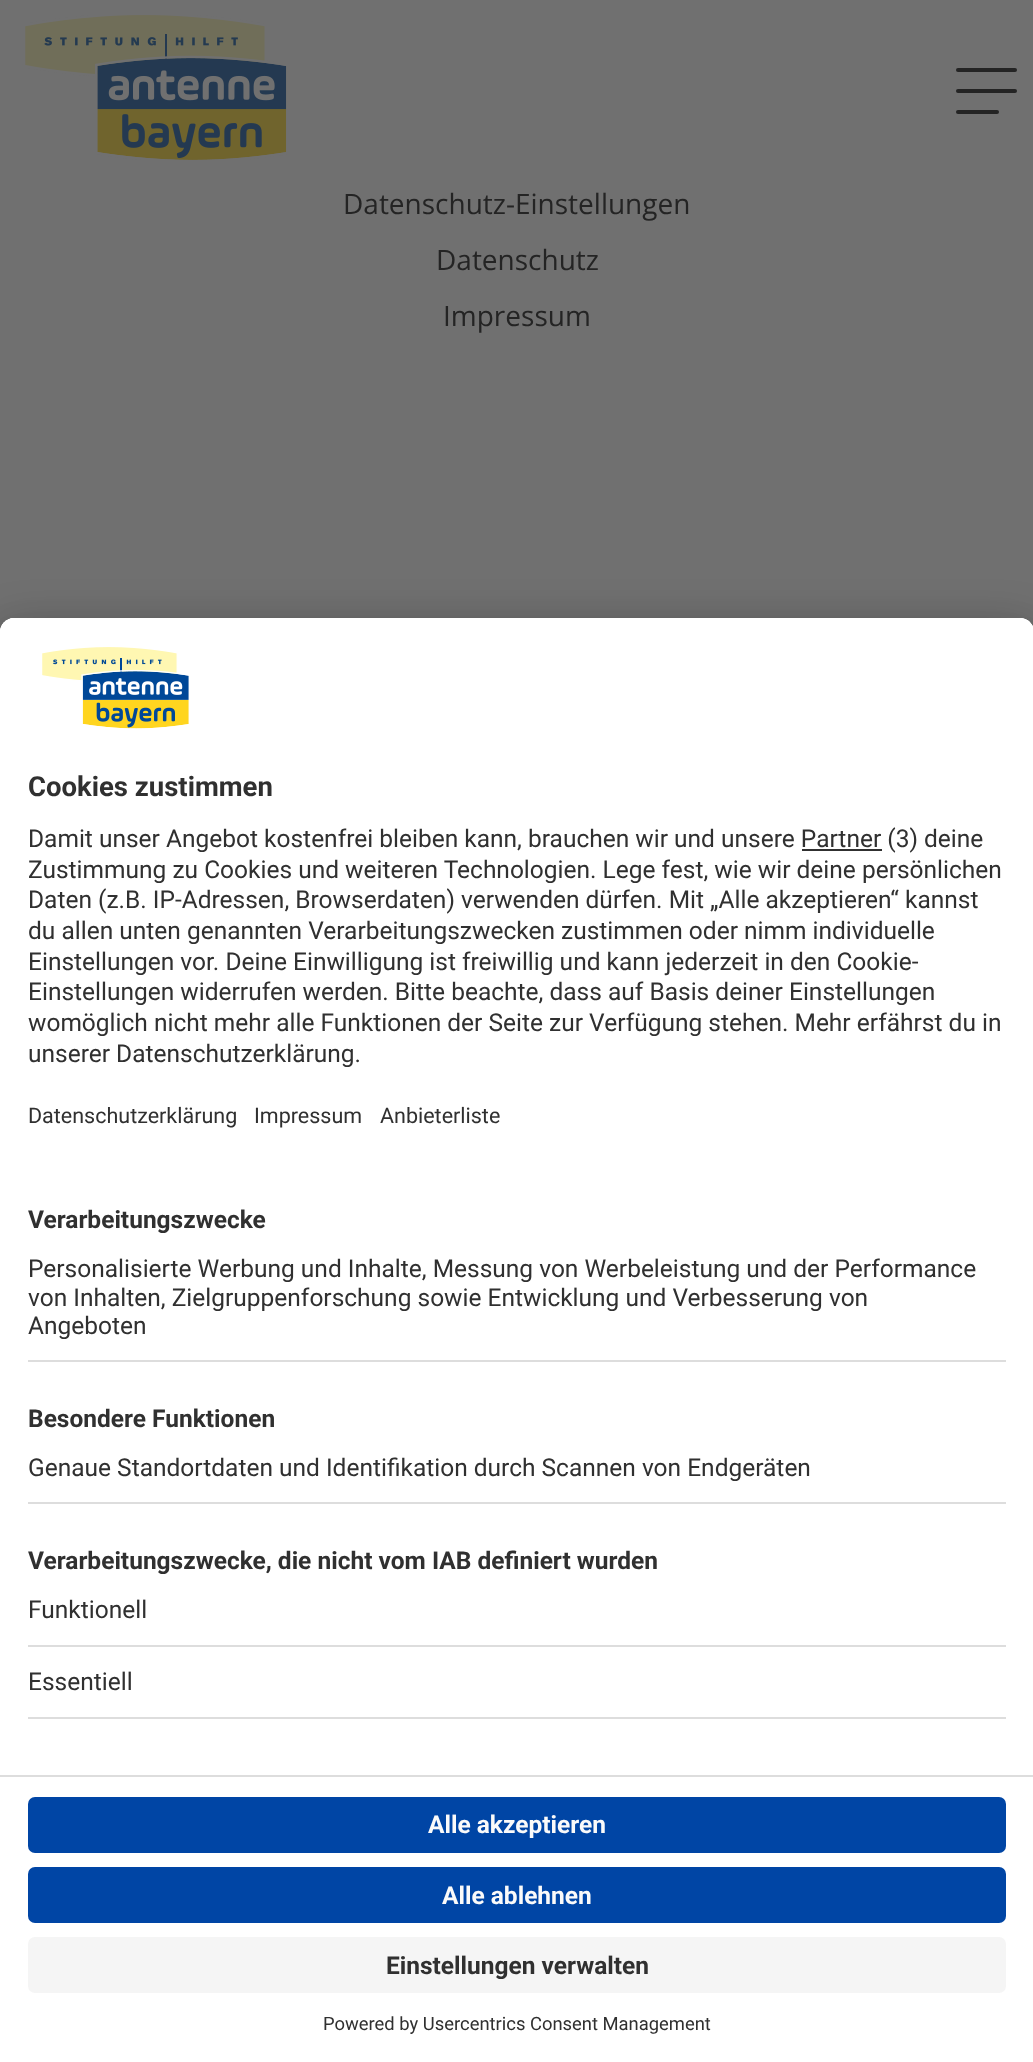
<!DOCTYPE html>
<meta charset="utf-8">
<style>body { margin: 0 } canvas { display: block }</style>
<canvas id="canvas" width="1033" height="2062"></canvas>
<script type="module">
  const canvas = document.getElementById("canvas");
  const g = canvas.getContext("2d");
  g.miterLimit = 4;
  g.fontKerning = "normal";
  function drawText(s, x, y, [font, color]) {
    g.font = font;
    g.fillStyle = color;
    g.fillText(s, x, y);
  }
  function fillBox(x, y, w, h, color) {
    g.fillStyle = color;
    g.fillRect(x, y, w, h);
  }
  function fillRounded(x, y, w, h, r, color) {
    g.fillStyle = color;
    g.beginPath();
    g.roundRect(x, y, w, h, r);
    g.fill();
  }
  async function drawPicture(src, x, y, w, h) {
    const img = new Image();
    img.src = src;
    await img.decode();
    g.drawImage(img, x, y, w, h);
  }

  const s1 = ["28px Open Sans", "#242424"];
  const s2 = ["bold 27.5px Roboto", "#303030"];
  const s3 = ["24.5px Roboto", "#303030"];
  const s4 = ["21.5px Roboto", "#303030"];
  const s5 = ["bold 24.5px Roboto", "#303030"];
  const s6 = ["bold 24.5px Roboto", "#FAFAFA"];
  const s7 = ["18.4px Roboto", "#303030"];

  fillBox(0, 0, 1033, 2062, "#707070");
  await drawPicture("pic1.png", 25, 15, 262, 145);
  fillRounded(956, 68, 61, 4, 2, "#242424");
  fillRounded(956, 89, 61, 4, 2, "#242424");
  fillRounded(956, 110, 43, 4, 2, "#242424");
  drawText("Datenschutz-Einstellungen", 343, 214, s1);
  drawText("Datenschutz", 436, 270, s1);
  drawText("Impressum", 443, 326, s1);
  g.fillStyle = "rgba(0, 0, 0, 0.3)";
  g.filter = "blur(24.5px)";
  g.beginPath();
  g.roundRect(0, 653, 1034, 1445, 14);
  g.fill();
  g.filter = "none";
  g.fillStyle = "rgba(0, 0, 0, 0.22)";
  g.filter = "blur(23px)";
  g.beginPath();
  g.roundRect(0, 627, 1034, 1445, 14);
  g.fill();
  g.filter = "none";
  g.fillStyle = "#FFFFFF";
  g.beginPath();
  g.moveTo(14, 618);
  g.lineTo(1020, 618);
  g.bezierCurveTo(1027.5, 618, 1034, 624.5, 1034, 632);
  g.lineTo(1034, 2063);
  g.lineTo(0, 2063);
  g.lineTo(0, 632);
  g.bezierCurveTo(0, 624.5, 6.5, 618, 14, 618);
  g.closePath();
  g.fill();
  g.beginPath();
  g.moveTo(14, 618);
  g.lineTo(1020, 618);
  g.bezierCurveTo(1027.5, 618, 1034, 624.5, 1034, 632);
  g.lineTo(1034, 1775);
  g.lineTo(0, 1775);
  g.lineTo(0, 632);
  g.bezierCurveTo(0, 624.5, 6.5, 618, 14, 618);
  g.closePath();
  g.fill();
  g.beginPath();
  g.moveTo(14, 618);
  g.lineTo(1020, 618);
  g.bezierCurveTo(1027.5, 618, 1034, 624.5, 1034, 632);
  g.lineTo(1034, 1185);
  g.lineTo(0, 1185);
  g.lineTo(0, 632);
  g.bezierCurveTo(0, 624.5, 6.5, 618, 14, 618);
  g.closePath();
  g.fill();
  await drawPicture("pic2.png", 42, 647, 147, 82);
  drawText("Cookies zustimmen", 28, 796, s2);
  drawText("Damit unser Angebot kostenfrei bleiben kann, brauchen wir und unsere Partner (3) deine", 28, 847, s3);
  fillBox(802, 849, 80, 2, "#303030");
  drawText("Zustimmung zu Cookies und weiteren Technologien. Lege fest, wie wir deine persönlichen", 28, 878, s3);
  drawText("Daten (z.B. IP-Adressen, Browserdaten) verwenden dürfen. Mit „Alle akzeptieren“ kannst", 28, 908, s3);
  drawText("du allen unten genannten Verarbeitungszwecken zustimmen oder nimm individuelle", 28, 939, s3);
  drawText("Einstellungen vor. Deine Einwilligung ist freiwillig und kann jederzeit in den Cookie-", 28, 970, s3);
  drawText("Einstellungen widerrufen werden. Bitte beachte, dass auf Basis deiner Einstellungen", 28, 1000, s3);
  drawText("womöglich nicht mehr alle Funktionen der Seite zur Verfügung stehen. Mehr erfährst du in", 28, 1031, s3);
  drawText("unserer Datenschutzerklärung.", 28, 1062, s3);
  drawText("Datenschutzerklärung", 28, 1123, s4);
  drawText("Impressum", 254, 1123, s4);
  drawText("Anbieterliste", 380, 1123, s4);
  drawText("Verarbeitungszwecke", 28, 1228, s5);
  fillBox(28, 1360, 978, 2, "#DDDDDD");
  drawText("Personalisierte Werbung und Inhalte, Messung von Werbeleistung und der Performance", 28, 1277, s3);
  drawText("von Inhalten, Zielgruppenforschung sowie Entwicklung und Verbesserung von", 28, 1306, s3);
  drawText("Angeboten", 28, 1334, s3);
  drawText("Besondere Funktionen", 28, 1427, s5);
  fillBox(28, 1502, 978, 2, "#DDDDDD");
  drawText("Genaue Standortdaten und Identifikation durch Scannen von Endgeräten", 28, 1476, s3);
  drawText("Verarbeitungszwecke, die nicht vom IAB definiert wurden", 28, 1569, s5);
  fillBox(28, 1645, 978, 2, "#DDDDDD");
  drawText("Funktionell", 28, 1618, s3);
  fillBox(28, 1717, 978, 2, "#DDDDDD");
  drawText("Essentiell", 28, 1690, s3);
  fillBox(0, 1775, 1033, 2, "#DDDDDD");
  fillRounded(28, 1797, 978, 56, 7, "#0045A5");
  drawText("Alle akzeptieren", 428, 1833, s6);
  fillRounded(28, 1867, 978, 56, 7, "#0045A5");
  drawText("Alle ablehnen", 442, 1904, s6);
  fillRounded(28, 1937, 978, 56, 7, "#F5F5F5");
  drawText("Einstellungen verwalten", 386, 1974, s5);
  drawText("Powered by Usercentrics Consent Management", 323, 2030, s7);
</script>
